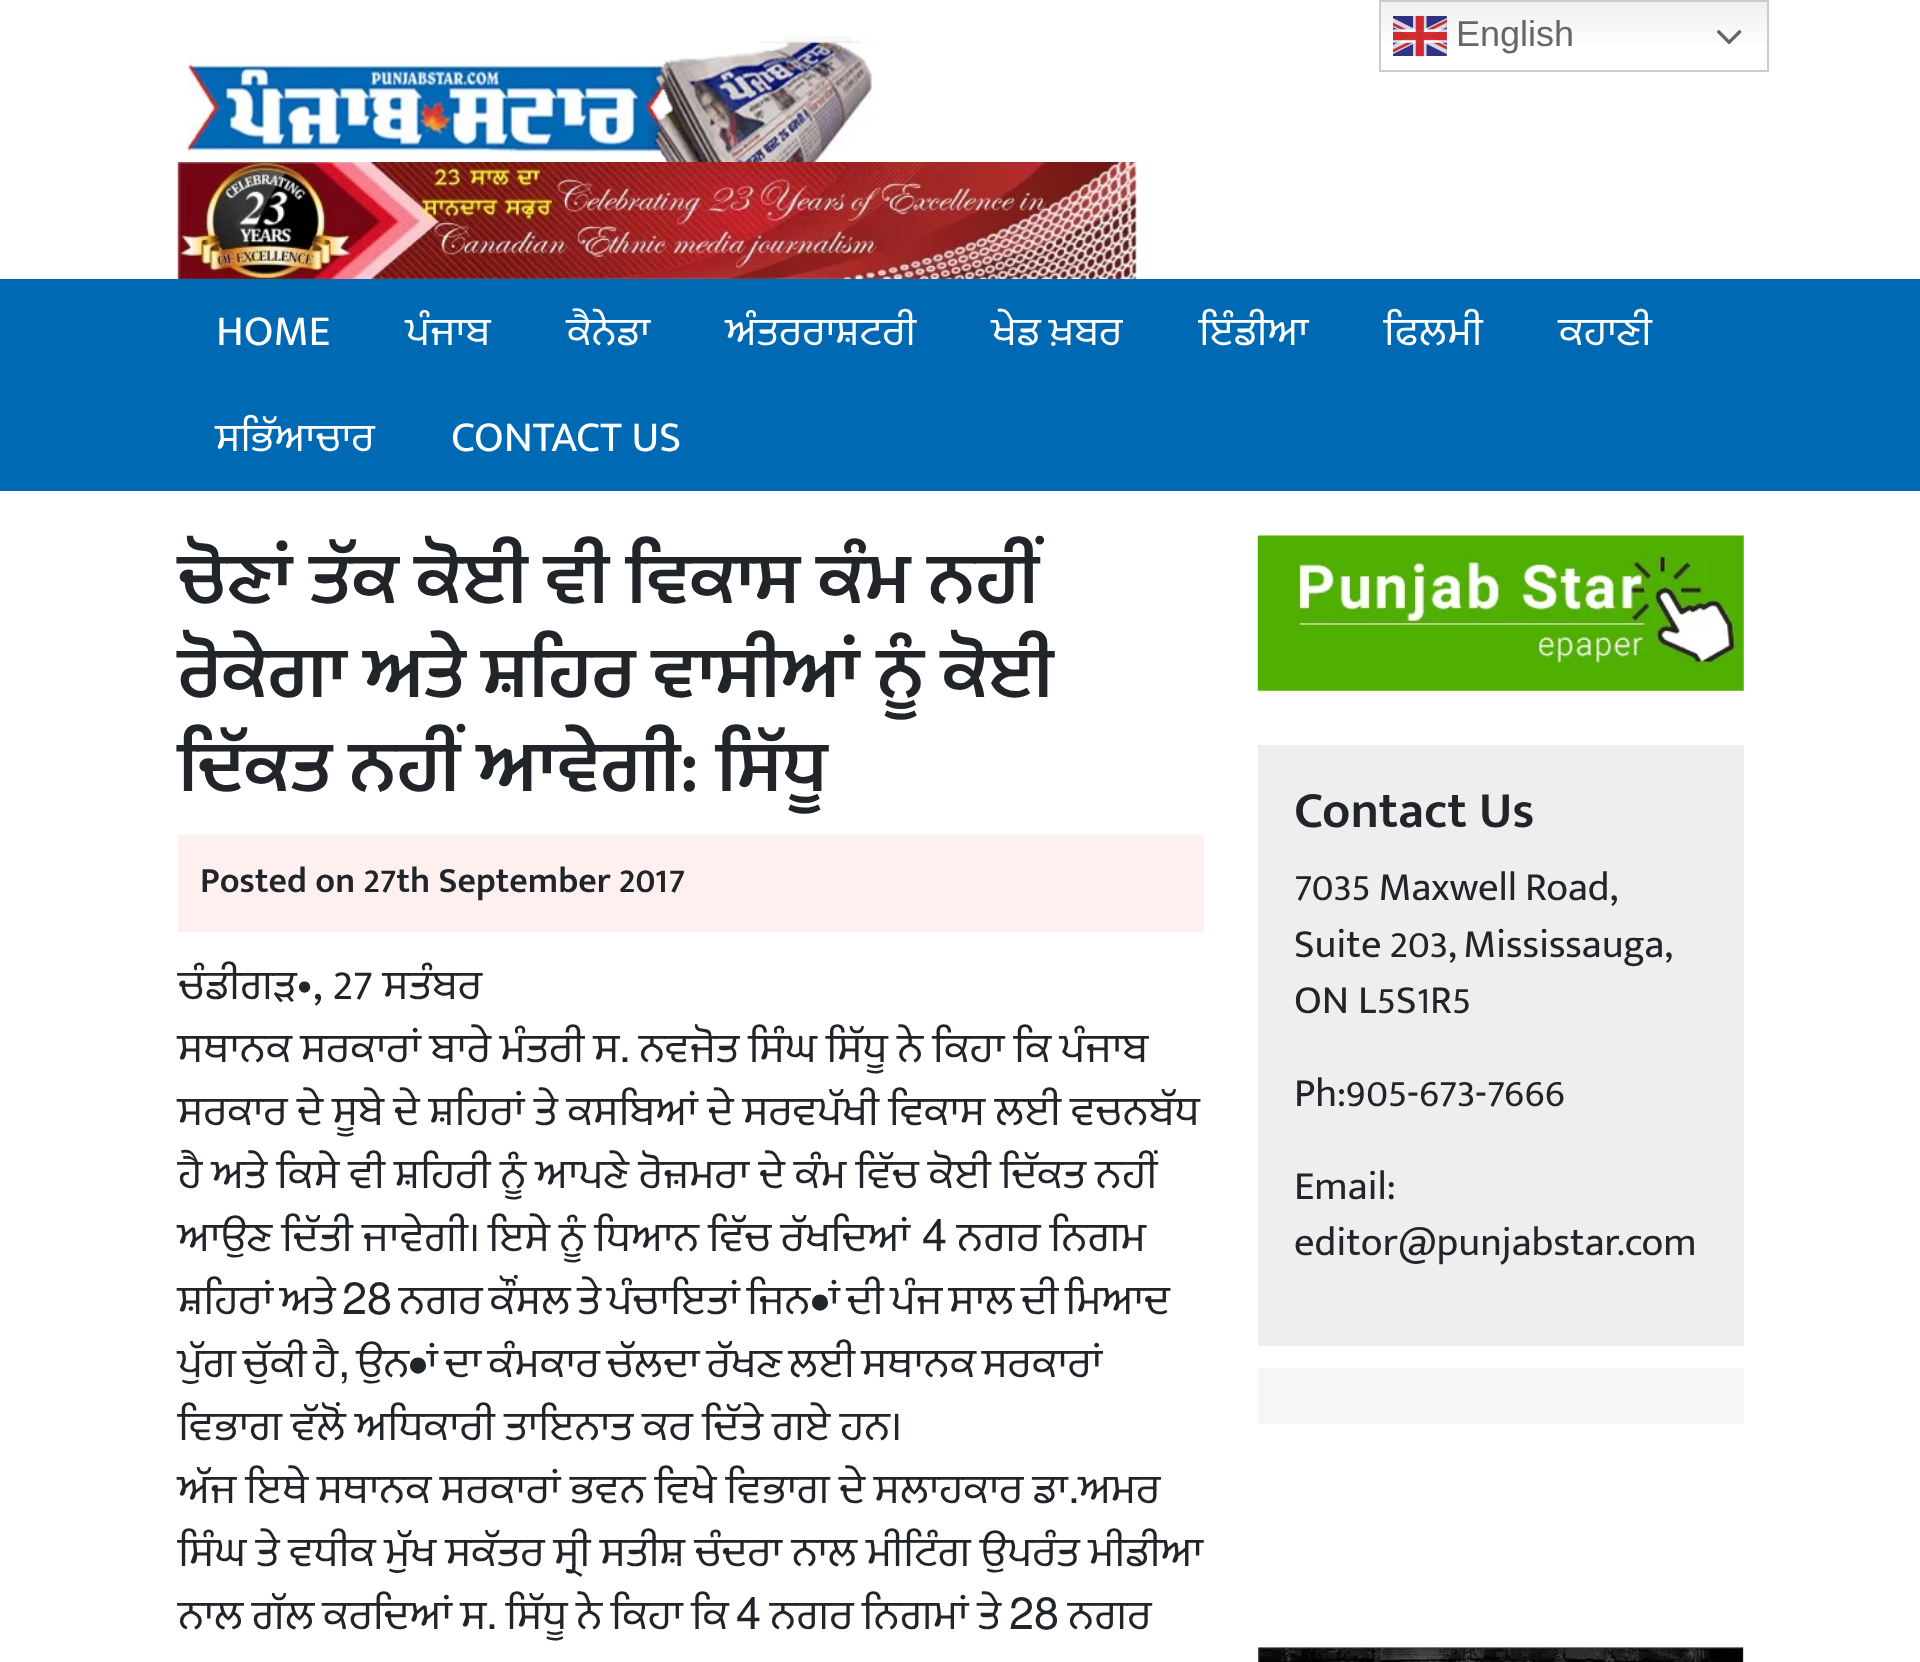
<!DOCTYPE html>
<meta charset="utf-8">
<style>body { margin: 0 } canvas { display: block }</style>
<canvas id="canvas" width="1920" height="1662"></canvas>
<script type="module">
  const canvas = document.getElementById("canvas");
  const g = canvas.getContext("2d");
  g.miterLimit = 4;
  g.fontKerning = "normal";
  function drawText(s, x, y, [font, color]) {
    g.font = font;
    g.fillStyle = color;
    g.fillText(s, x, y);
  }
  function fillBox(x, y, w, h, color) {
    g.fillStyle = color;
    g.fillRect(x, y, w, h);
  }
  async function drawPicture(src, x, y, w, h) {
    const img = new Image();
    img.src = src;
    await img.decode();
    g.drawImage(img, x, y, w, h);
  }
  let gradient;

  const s1 = ["36px Liberation Sans", "#666666"];
  const s2 = ["43.25px Mukta Mahee", "#FFFFFF"];
  const s3 = ["600 78.25px Mukta Mahee", "#212529"];
  const s4 = ["600 36px Mukta Mahee", "#212529"];
  const s5 = ["45px Mukta Mahee", "#212529"];
  const s6 = ["45px FreeSans", "#212529"];
  const s7 = ["600 51.5px Mukta Mahee", "#212529"];
  const s8 = ["40.5px Mukta Mahee", "#212529"];

  fillBox(0, 0, 1920, 1662, "#FFFFFF");
  await drawPicture("pic1.png", 186, 36, 689, 126);
  await drawPicture("pic2.png", 177, 162, 960, 117);
  gradient = g.createLinearGradient(1574, 0, 1574, 72);
  gradient.addColorStop(0, "#EFEFEF");
  gradient.addColorStop(0.7, "#FFFFFF");
  g.fillStyle = gradient;
  g.fillRect(1381, 2, 386, 41);
  g.strokeStyle = "#CCCCCC";
  g.lineWidth = 2;
  g.strokeRect(1380, 1, 388, 70);
  await drawPicture("pic3.png", 1393, 15, 54, 42);
  drawText("English", 1456, 46, s1);
  await drawPicture("pic4.png", 1717, 30, 25, 15);
  fillBox(0, 279, 1920, 212, "#0069B4");
  drawText("HOME", 216, 345, s2);
  drawText("ਪੰਜਾਬ", 406, 345, s2);
  drawText("ਕੈਨੇਡਾ", 567, 345, s2);
  drawText("ਅੰਤਰਰਾਸ਼ਟਰੀ", 726, 345, s2);
  drawText("ਖੇਡ ਖ਼ਬਰ", 992, 345, s2);
  drawText("ਇੰਡੀਆ", 1199, 345, s2);
  drawText("ਫਿਲਮੀ", 1384, 345, s2);
  drawText("ਕਹਾਣੀ", 1559, 345, s2);
  drawText("ਸਭਿੱਆਚਾਰ", 216, 451, s2);
  drawText("CONTACT US", 451, 451, s2);
  drawText("ਚੋਣਾਂ ਤੱਕ ਕੋਈ ਵੀ ਵਿਕਾਸ ਕੰਮ ਨਹੀਂ", 178, 603, s3);
  drawText("ਰੋਕੇਗਾ ਅਤੇ ਸ਼ਹਿਰ ਵਾਸੀਆਂ ਨੂੰ ਕੋਈ", 178, 697, s3);
  drawText("ਦਿੱਕਤ ਨਹੀਂ ਆਵੇਗੀ: ਸਿੱਧੂ", 178, 791, s3);
  fillBox(178, 835, 1026, 97, "#FFF0F0");
  drawText("Posted on 27th September 2017", 200, 892, s4);
  drawText("ਚੰਡੀਗੜ•, 27 ਸਤੰਬਰ", 178, 999, s5);
  g.wordSpacing = "-0.25px";
  drawText("ਸਥਾਨਕ ਸਰਕਾਰਾਂ ਬਾਰੇ ਮੰਤਰੀ ਸ", 178, 1062, s5);
  g.wordSpacing = "0px";
  drawText(".", 619, 1062, s6);
  g.wordSpacing = "-0.25px";
  drawText("ਨਵਜੋਤ ਸਿੰਘ ਸਿੱਧੂ ਨੇ ਕਿਹਾ ਕਿ ਪੰਜਾਬ", 639, 1062, s5);
  g.wordSpacing = "0px";
  drawText("ਸਰਕਾਰ ਦੇ ਸੂਬੇ ਦੇ ਸ਼ਹਿਰਾਂ ਤੇ ਕਸਬਿਆਂ ਦੇ ਸਰਵਪੱਖੀ ਵਿਕਾਸ ਲਈ ਵਚਨਬੱਧ", 178, 1125, s5);
  drawText("ਹੈ ਅਤੇ ਕਿਸੇ ਵੀ ਸ਼ਹਿਰੀ ਨੂੰ ਆਪਣੇ ਰੋਜ਼ਮਰਾ ਦੇ ਕੰਮ ਵਿੱਚ ਕੋਈ ਦਿੱਕਤ ਨਹੀਂ", 178, 1188, s5);
  g.wordSpacing = "-0.25px";
  drawText("ਆਉਣ ਦਿੱਤੀ ਜਾਵੇਗੀ। ਇਸੇ ਨੂੰ ਧਿਆਨ ਵਿੱਚ ਰੱਖਦਿਆਂ", 178, 1251, s5);
  g.wordSpacing = "0px";
  drawText("4", 922, 1251, s6);
  g.wordSpacing = "-0.25px";
  drawText("ਨਗਰ ਨਿਗਮ", 957, 1251, s5);
  g.wordSpacing = "-2.75px";
  drawText("ਸ਼ਹਿਰਾਂ ਅਤੇ", 178, 1314, s5);
  g.wordSpacing = "0px";
  drawText("28", 342, 1314, s6);
  g.wordSpacing = "-2.75px";
  drawText("ਨਗਰ ਕੌਂਸਲ ਤੇ ਪੰਚਾਇਤਾਂ ਜਿਨ", 399, 1314, s5);
  g.wordSpacing = "0px";
  drawText("•", 811, 1314, s6);
  g.wordSpacing = "-2.75px";
  drawText("ਾਂ ਦੀ ਪੰਜ ਸਾਲ ਦੀ ਮਿਆਦ", 829, 1314, s5);
  drawText("ਪੁੱਗ ਚੁੱਕੀ ਹੈ", 178, 1377, s5);
  g.wordSpacing = "0px";
  drawText("ਉਨ", 357, 1377, s5);
  drawText("•", 409, 1377, s6);
  g.wordSpacing = "-2.75px";
  drawText("ਾਂ ਦਾ ਕੰਮਕਾਰ ਚੱਲਦਾ ਰੱਖਣ ਲਈ ਸਥਾਨਕ ਸਰਕਾਰਾਂ", 427, 1377, s5);
  g.wordSpacing = "0px";
  drawText(",", 338, 1377, s6);
  drawText("ਵਿਭਾਗ ਵੱਲੋਂ ਅਧਿਕਾਰੀ ਤਾਇਨਾਤ ਕਰ ਦਿੱਤੇ ਗਏ ਹਨ।", 178, 1440, s5);
  g.wordSpacing = "-0.25px";
  drawText("ਅੱਜ ਇਥੇ ਸਥਾਨਕ ਸਰਕਾਰਾਂ ਭਵਨ ਵਿਖੇ ਵਿਭਾਗ ਦੇ ਸਲਾਹਕਾਰ ਡਾ", 178, 1503, s5);
  g.wordSpacing = "0px";
  drawText(".", 1068, 1503, s6);
  drawText("ਅਮਰ", 1079, 1503, s5);
  drawText("ਸਿੰਘ ਤੇ ਵਧੀਕ ਮੁੱਖ ਸਕੱਤਰ ਸ੍ਰੀ ਸਤੀਸ਼ ਚੰਦਰਾ ਨਾਲ ਮੀਟਿੰਗ ਉਪਰੰਤ ਮੀਡੀਆ", 178, 1566, s5);
  g.wordSpacing = "-1px";
  drawText("ਨਾਲ ਗੱਲ ਕਰਦਿਆਂ ਸ", 178, 1629, s5);
  g.wordSpacing = "0px";
  drawText(".", 486, 1629, s6);
  g.wordSpacing = "-1px";
  drawText("ਸਿੱਧੂ ਨੇ ਕਿਹਾ ਕਿ", 506, 1629, s5);
  g.wordSpacing = "0px";
  drawText("4", 736, 1629, s6);
  g.wordSpacing = "-1px";
  drawText("ਨਗਰ ਨਿਗਮਾਂ ਤੇ", 770, 1629, s5);
  g.wordSpacing = "0px";
  drawText("28", 1009, 1629, s6);
  drawText("ਨਗਰ", 1068, 1629, s5);
  await drawPicture("pic5.png", 1257, 535, 487, 156);
  fillBox(1258, 745, 486, 601, "#EEEEEE");
  drawText("Contact Us", 1294, 827, s7);
  g.wordSpacing = "-1px";
  drawText("7035 Maxwell Road,", 1294, 900, s8);
  drawText("Suite 203, Mississauga,", 1294, 957, s8);
  g.wordSpacing = "0px";
  drawText("ON L5S1R5", 1294, 1013, s8);
  drawText("Ph:905-673-7666", 1294, 1106, s8);
  drawText("Email:", 1294, 1199, s8);
  drawText("editor@punjabstar.com", 1294, 1255, s8);
  fillBox(1258, 1368, 486, 56, "#F6F6F6");
  await drawPicture("pic6.png", 1257, 1647, 487, 15);
</script>
